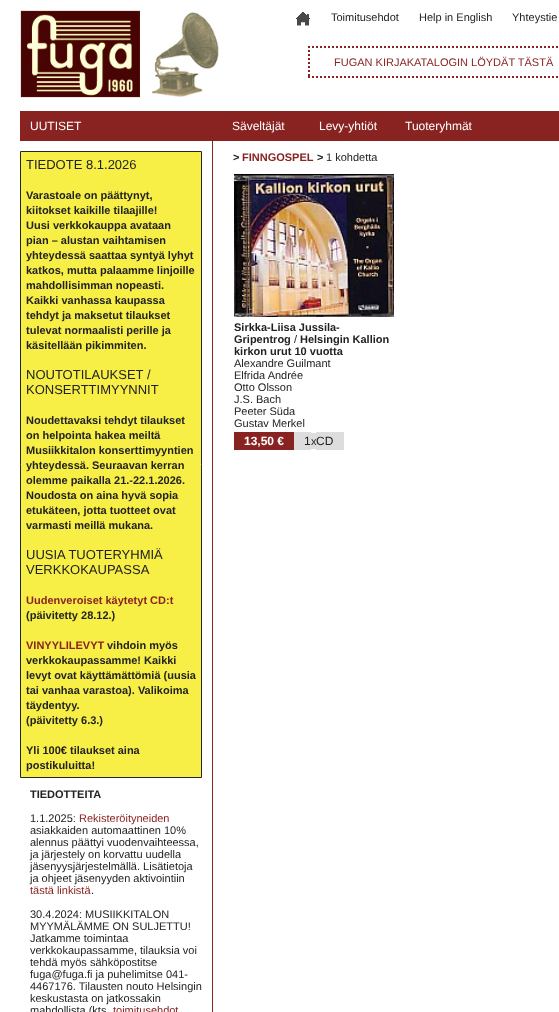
<!DOCTYPE html>
<meta charset="utf-8">
<style>body { margin: 0 } canvas { display: block }</style>
<canvas id="canvas" width="559" height="1012"></canvas>
<script type="module">
  const canvas = document.getElementById("canvas");
  const g = canvas.getContext("2d");
  g.miterLimit = 4;
  g.fontKerning = "normal";
  function drawText(s, x, y, [font, color]) {
    g.font = font;
    g.fillStyle = color;
    g.fillText(s, x, y);
  }
  function fillBox(x, y, w, h, color) {
    g.fillStyle = color;
    g.fillRect(x, y, w, h);
  }
  async function drawPicture(src, x, y, w, h) {
    const img = new Image();
    img.src = src;
    await img.decode();
    g.drawImage(img, x, y, w, h);
  }

  const s1 = ["11px Liberation Sans", "#222222"];
  const s2 = ["11px Liberation Sans", "#892322"];
  const s3 = ["12px Liberation Sans", "#FFFFFF"];
  const s4 = ["13px Liberation Sans", "#222222"];
  const s5 = ["bold 11px Liberation Sans", "#222222"];
  const s6 = ["bold 11px Liberation Sans", "#892322"];
  const s7 = ["bold 12px Liberation Sans", "#FFFFFF"];
  const s8 = ["12px Liberation Sans", "#222222"];

  fillBox(0, 0, 559, 1012, "#FFFFFF");
  await drawPicture("pic1.png", 20, 10, 199, 88);
  await drawPicture("pic2.png", 295, 12, 16, 14);
  drawText("Toimitusehdot", 331, 21, s1);
  drawText("Help in English", 419, 21, s1);
  drawText("Yhteystie", 512, 21, s1);
  g.beginPath();
  g.moveTo(308, 47);
  g.lineTo(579, 47);
  g.strokeStyle = "#892322";
  g.lineWidth = 2;
  g.setLineDash([2, 2]);
  g.stroke();
  g.beginPath();
  g.moveTo(308, 77);
  g.lineTo(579, 77);
  g.stroke();
  g.beginPath();
  g.moveTo(309, 46);
  g.lineTo(309, 78);
  g.stroke();
  drawText("FUGAN KIRJAKATALOGIN LÖYDÄT TÄSTÄ", 334, 66, s2);
  fillBox(212, 111, 1, 901, "#892322");
  fillBox(20, 111, 192, 30, "#892322");
  drawText("UUTISET", 30, 130, s3);
  g.fillStyle = "#F7EF46";
  g.beginPath();
  g.rect(20.5, 151.5, 181, 626);
  g.fill();
  g.strokeStyle = "#272624";
  g.lineWidth = 1;
  g.setLineDash([]);
  g.stroke();
  drawText("TIEDOTE 8.1.2026", 26, 169, s4);
  drawText("Varastoale on päättynyt,", 26, 199, s5);
  drawText("kiitokset kaikille tilaajille!", 26, 214, s5);
  drawText("Uusi verkkokauppa avataan", 26, 229, s5);
  drawText("pian – alustan vaihtamisen", 26, 244, s5);
  drawText("yhteydessä saattaa syntyä lyhyt", 26, 259, s5);
  drawText("katkos, mutta palaamme linjoille", 26, 274, s5);
  drawText("mahdollisimman nopeasti.", 26, 289, s5);
  drawText("Kaikki vanhassa kaupassa", 26, 304, s5);
  drawText("tehdyt ja maksetut tilaukset", 26, 319, s5);
  drawText("tulevat normaalisti perille ja", 26, 334, s5);
  drawText("käsitellään pikimmiten.", 26, 349, s5);
  drawText("NOUTOTILAUKSET /", 26, 379, s4);
  drawText("KONSERTTIMYYNNIT", 26, 394, s4);
  drawText("Noudettavaksi tehdyt tilaukset", 26, 424, s5);
  drawText("on helpointa hakea meiltä", 26, 439, s5);
  drawText("Musiikkitalon konserttimyyntien", 26, 454, s5);
  drawText("yhteydessä. Seuraavan kerran", 26, 469, s5);
  drawText("olemme paikalla 21.-22.1.2026.", 26, 484, s5);
  drawText("Noudosta on aina hyvä sopia", 26, 499, s5);
  drawText("etukäteen, jotta tuotteet ovat", 26, 514, s5);
  drawText("varmasti meillä mukana.", 26, 529, s5);
  drawText("UUSIA TUOTERYHMIÄ", 26, 559, s4);
  drawText("VERKKOKAUPASSA", 26, 574, s4);
  drawText("Uudenveroiset käytetyt CD:t", 26, 604, s6);
  drawText("(päivitetty 28.12.)", 26, 619, s5);
  drawText("VINYYLILEVYT", 26, 649, s6);
  drawText("vihdoin myös", 107, 649, s5);
  drawText("verkkokaupassamme! Kaikki", 26, 664, s5);
  drawText("levyt ovat käyttämättömiä (uusia", 26, 679, s5);
  drawText("tai vanhaa varastoa). Valikoima", 26, 694, s5);
  drawText("täydentyy.", 26, 709, s5);
  drawText("(päivitetty 6.3.)", 26, 724, s5);
  drawText("Yli 100€ tilaukset aina", 26, 754, s5);
  drawText("postikuluitta!", 26, 769, s5);
  drawText("TIEDOTTEITA", 30, 798, s5);
  drawText("1.1.2025:", 30, 822, s1);
  drawText("Rekisteröityneiden", 79, 822, s2);
  drawText("asiakkaiden automaattinen 10%", 30, 834, s1);
  drawText("alennus päättyi vuodenvaihteessa,", 30, 846, s1);
  drawText("ja järjestely on korvattu uudella", 30, 858, s1);
  drawText("jäsenyysjärjestelmällä. Lisätietoja", 30, 870, s1);
  drawText("ja ohjeet jäsenyyden aktivointiin", 30, 882, s1);
  drawText("tästä linkistä", 30, 894, s2);
  drawText(".", 91, 894, s1);
  drawText("30.4.2024: MUSIIKKITALON", 30, 918, s1);
  drawText("MYYMÄLÄMME ON SULJETTU!", 30, 930, s1);
  drawText("Jatkamme toimintaa", 30, 942, s1);
  drawText("verkkokaupassamme, tilauksia voi", 30, 954, s1);
  drawText("tehdä myös sähköpostitse", 30, 966, s1);
  drawText("fuga@fuga.fi ja puhelimitse 041-", 30, 978, s1);
  drawText("4467176. Tilausten nouto Helsingin", 30, 990, s1);
  drawText("keskustasta on jatkossakin", 30, 1002, s1);
  drawText("mahdollista (kts", 30, 1014, s1);
  drawText("toimitusehdot", 113, 1014, s2);
  fillBox(213, 111, 346, 30, "#892322");
  drawText("Säveltäjät", 232, 130, s3);
  drawText("Levy-yhtiöt", 319, 130, s3);
  drawText("Tuoteryhmät", 405, 130, s3);
  drawText(">", 233, 161, s5);
  drawText("FINNGOSPEL", 242, 161, s6);
  drawText(">", 317, 161, s5);
  drawText("1 kohdetta", 326, 161, s1);
  await drawPicture("pic3.png", 234, 174, 160, 143);
  drawText("Sirkka-Liisa Jussila-", 234, 331, s5);
  drawText("Gripentrog", 234, 343, s5);
  drawText("/", 294, 343, s1);
  drawText("Helsingin Kallion", 300, 343, s5);
  drawText("kirkon urut 10 vuotta", 234, 355, s5);
  drawText("Alexandre Guilmant", 234, 367, s1);
  drawText("Elfrida Andrée", 234, 379, s1);
  drawText("Otto Olsson", 234, 391, s1);
  drawText("J.S. Bach", 234, 403, s1);
  drawText("Peeter Süda", 234, 415, s1);
  drawText("Gustav Merkel", 234, 427, s1);
  fillBox(234, 432, 60, 18, "#892322");
  drawText("13,50 €", 244, 445, s7);
  fillBox(294, 432, 17, 18, "#DDDDDD");
  drawText("1", 304, 445, s8);
  fillBox(311, 433, 5, 16, "#DDDDDD");
  fillBox(316, 432, 28, 18, "#DDDDDD");
  drawText("x", 311, 445, s1);
  drawText("CD", 316, 445, s8);
</script>
